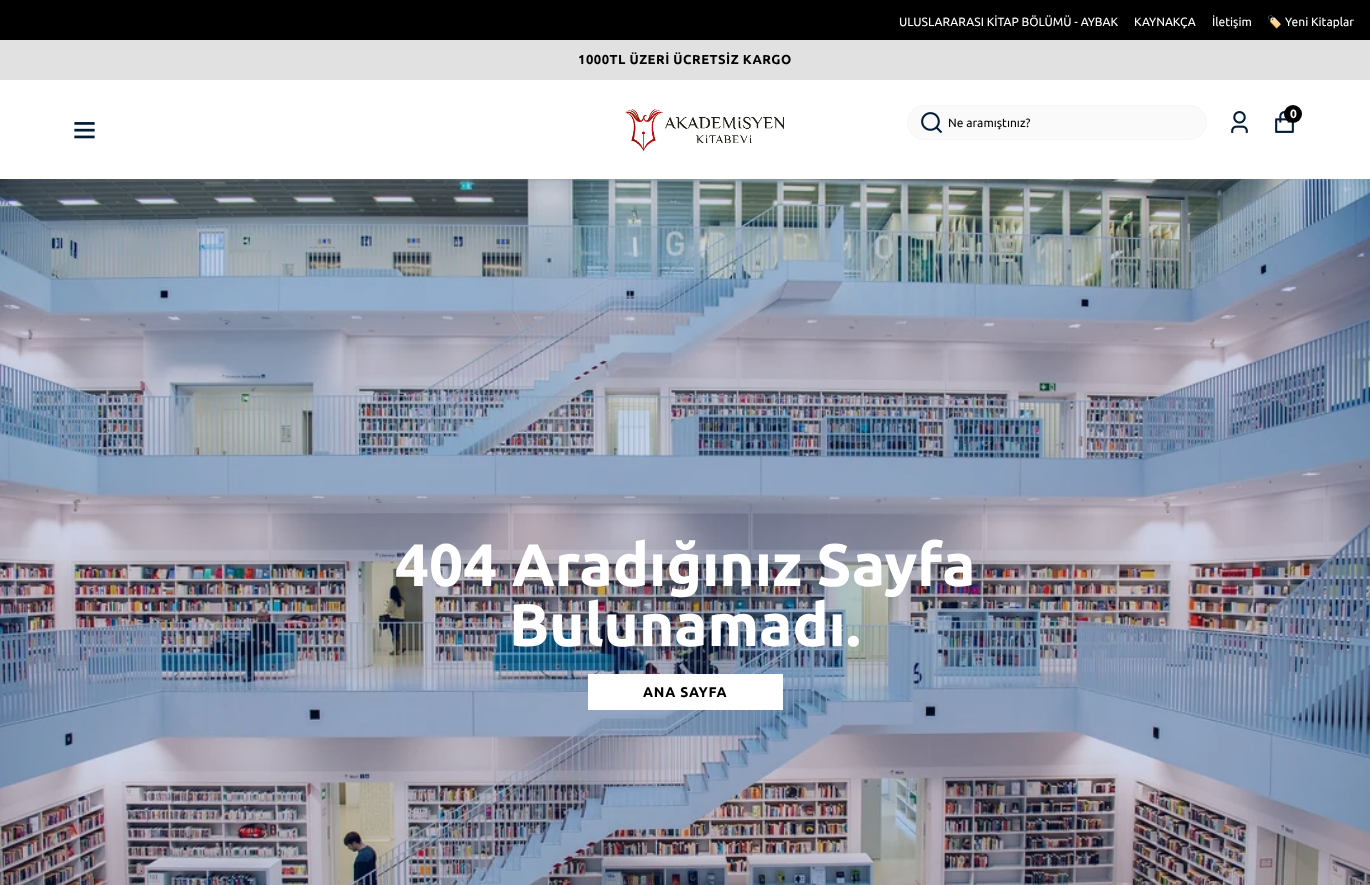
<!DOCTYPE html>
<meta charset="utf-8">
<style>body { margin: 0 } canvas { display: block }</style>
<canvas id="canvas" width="1370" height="885"></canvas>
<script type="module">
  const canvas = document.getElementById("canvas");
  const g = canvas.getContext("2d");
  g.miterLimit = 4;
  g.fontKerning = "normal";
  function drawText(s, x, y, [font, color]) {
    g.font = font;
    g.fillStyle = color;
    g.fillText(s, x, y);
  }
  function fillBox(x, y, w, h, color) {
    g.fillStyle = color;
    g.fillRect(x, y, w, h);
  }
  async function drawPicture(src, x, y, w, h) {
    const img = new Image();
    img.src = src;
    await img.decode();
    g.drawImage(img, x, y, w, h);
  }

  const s1 = ["12px Ubuntu", "#FFFFFF"];
  const s2 = ["12px Noto Color Emoji", "#FFFFFF"];
  const s3 = ["bold 13px Ubuntu", "#000000"];
  const s4 = ["12px Ubuntu", "#000000"];
  const s5 = ["bold 12px Ubuntu", "#FFFFFF"];
  const s6 = ["bold 60px Ubuntu", "#FFFFFF"];
  const s7 = ["bold 14px Ubuntu", "#000000"];

  fillBox(0, 0, 1370, 885, "#FFFFFF");
  fillBox(0, 0, 1370, 40, "#000000");
  drawText("ULUSLARARASI KİTAP BÖLÜMÜ - AYBAK", 899, 26, s1);
  drawText("KAYNAKÇA", 1134, 26, s1);
  drawText("İletişim", 1212, 26, s1);
  drawText("🏷️", 1267, 26, s2);
  drawText("Yeni Kitaplar", 1285, 26, s1);
  fillBox(0, 40, 1370, 40, "#E1E1E1");
  g.letterSpacing = "0.5px";
  drawText("1000TL ÜZERİ ÜCRETSİZ KARGO", 578, 64, s3);
  await drawPicture("pic6.png", 0, 179, 1370, 706);
  g.save();
  g.beginPath();
  g.rect(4, 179, 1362, 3);
  g.clip();
  g.fillStyle = "#989898";
  g.filter = "blur(2.5px)";
  g.beginPath();
  g.rect(7, 92, 1356, 85);
  g.fill();
  g.filter = "none";
  g.restore();
  await drawPicture("pic1.png", 74, 122, 21, 17);
  await drawPicture("pic2.png", 625, 109, 159, 43);
  g.fillStyle = "#FAFAFA";
  g.beginPath();
  g.roundRect(907.5, 105.5, 299, 34, 17);
  g.fill();
  g.strokeStyle = "#F6F6F6";
  g.stroke();
  await drawPicture("pic3.png", 921, 112, 22, 22);
  g.letterSpacing = "0px";
  drawText("Ne aramıştınız?", 948, 127, s4);
  await drawPicture("pic4.png", 1231, 111, 17, 22);
  await drawPicture("pic5.png", 1275, 111, 19, 22);
  g.beginPath();
  g.arc(1293, 114, 9, 0, Math.PI * 2);
  g.fill();
  drawText("0", 1290, 118, s5);
  drawText("404 Aradığınız Sayfa", 395, 586, s6);
  drawText("Bulunamadı.", 509, 646, s6);
  fillBox(588, 674, 195, 36, "#FFFFFF");
  g.letterSpacing = "0.75px";
  drawText("ANA SAYFA", 643, 697, s7);
</script>
